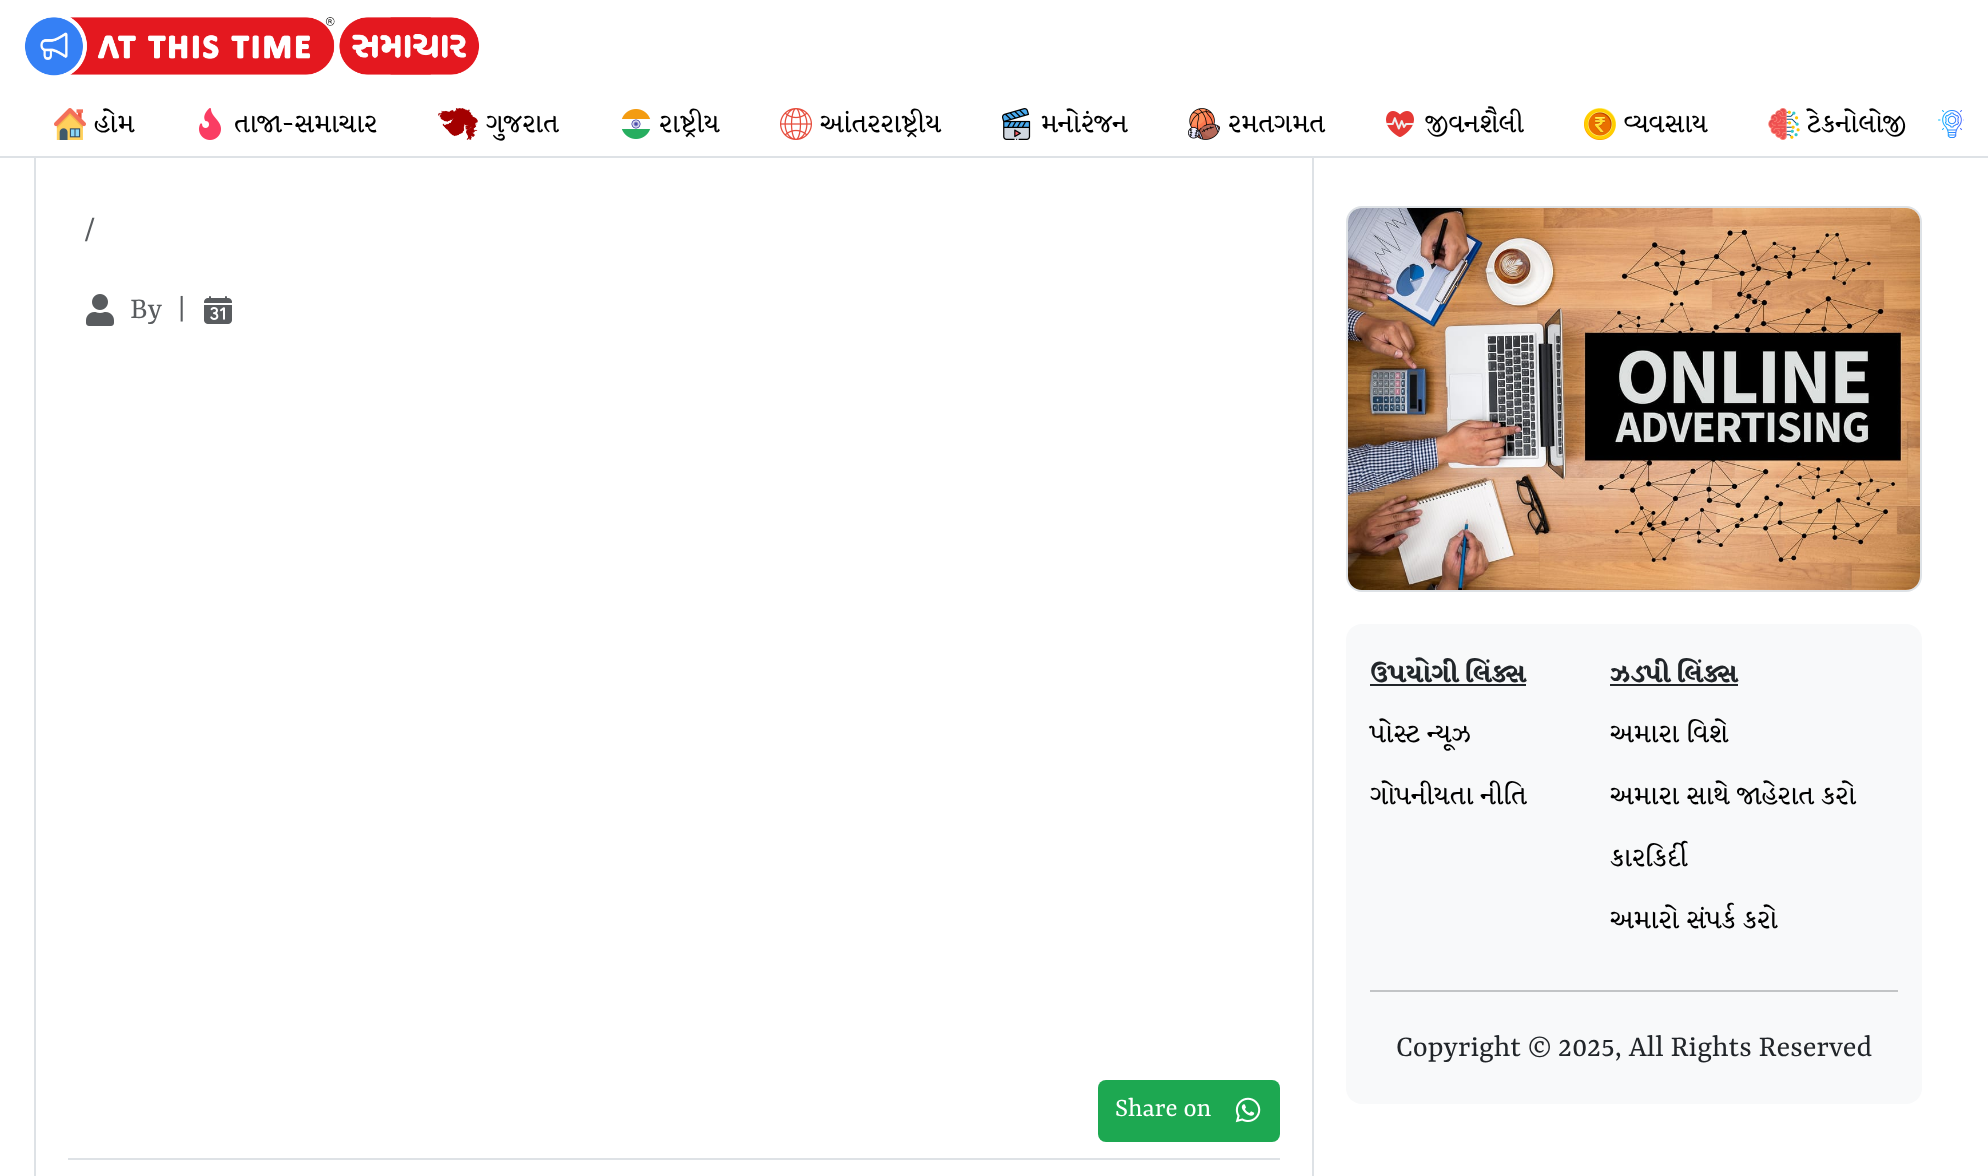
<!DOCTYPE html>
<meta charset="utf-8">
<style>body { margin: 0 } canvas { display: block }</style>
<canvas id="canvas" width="1988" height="1176"></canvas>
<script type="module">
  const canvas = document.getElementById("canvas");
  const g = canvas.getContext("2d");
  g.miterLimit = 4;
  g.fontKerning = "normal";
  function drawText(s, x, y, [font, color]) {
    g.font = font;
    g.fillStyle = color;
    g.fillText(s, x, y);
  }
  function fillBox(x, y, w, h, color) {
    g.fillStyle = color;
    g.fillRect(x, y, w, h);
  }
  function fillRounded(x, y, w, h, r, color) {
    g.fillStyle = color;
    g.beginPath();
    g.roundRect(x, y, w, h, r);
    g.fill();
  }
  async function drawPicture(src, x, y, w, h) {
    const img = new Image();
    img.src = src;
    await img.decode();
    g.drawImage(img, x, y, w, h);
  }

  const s1 = ["32px Rasa", "#000000"];
  const s2 = ["32px Rasa", "#595C5F"];
  const s3 = ["28px Rasa", "#FFFFFF"];
  const s4 = ["bold 32px Rasa", "#212529"];
  const s5 = ["32px Rasa", "#212529"];

  fillBox(0, 0, 1988, 1176, "#FFFFFF");
  fillBox(0, 156, 1988, 2, "#DEE2E6");
  await drawPicture("pic1.png", 24, 17, 456, 59);
  await drawPicture("pic2.png", 54, 108, 32, 32);
  drawText("હોમ", 94, 132, s1);
  await drawPicture("pic3.png", 199, 108, 22, 32);
  drawText("તાજા-સમાચાર", 234, 132, s1);
  await drawPicture("pic4.png", 438, 108, 40, 32);
  drawText("ગુજરાત", 486, 132, s1);
  await drawPicture("pic5.png", 621, 109, 30, 30);
  drawText("રાષ્ટ્રીય", 659, 132, s1);
  await drawPicture("pic6.png", 780, 108, 32, 32);
  drawText("આંતરરાષ્ટ્રીય", 820, 132, s1);
  await drawPicture("pic7.png", 1002, 108, 29, 32);
  drawText("મનોરંજન", 1041, 132, s1);
  await drawPicture("pic8.png", 1188, 108, 32, 32);
  drawText("રમતગમત", 1228, 132, s1);
  await drawPicture("pic9.png", 1386, 111, 28, 26);
  drawText("જીવનશૈલી", 1425, 132, s1);
  await drawPicture("pic10.png", 1584, 108, 32, 32);
  drawText("વ્યવસાય", 1624, 132, s1);
  await drawPicture("pic11.png", 1768, 108, 32, 32);
  drawText("ટેકનોલોજી", 1807, 132, s1);
  await drawPicture("pic12.png", 1938, 110, 26, 28);
  fillBox(1312, 158, 2, 1018, "#DEE2E6");
  fillBox(34, 158, 2, 1018, "#DEE2E6");
  drawText("/", 84, 238, s2);
  await drawPicture("pic13.png", 86, 294, 28, 32);
  drawText("By", 130, 318, s2);
  drawText("|", 178, 318, s2);
  await drawPicture("pic14.png", 204, 296, 28, 28);
  fillBox(68, 1158, 1212, 2, "#DEE2E6");
  fillRounded(1098, 1080, 182, 62, 8, "#1DA851");
  drawText("Share on", 1115, 1116, s3);
  await drawPicture("pic15.png", 1235, 1097, 26, 26);
  g.beginPath();
  g.roundRect(1347, 207, 574, 384, 15);
  g.strokeStyle = "#DEE2E6";
  g.lineWidth = 2;
  g.stroke();
  await drawPicture("pic16.png", 1348, 208, 572, 382);
  fillRounded(1346, 624, 576, 480, 16, "#F8F9FA");
  drawText("ઉપયોગી લિંક્સ", 1370, 682, s4);
  fillBox(1370, 684, 156, 2, "#212529");
  drawText("પોસ્ટ ન્યૂઝ", 1370, 742, s1);
  drawText("ગોપનીયતા નીતિ", 1370, 804, s1);
  drawText("ઝડપી લિંક્સ", 1610, 682, s4);
  fillBox(1610, 684, 128, 2, "#212529");
  drawText("અમારા વિશે", 1610, 742, s1);
  drawText("અમારા સાથે જાહેરાત કરો", 1610, 804, s1);
  drawText("કારકિર્દી", 1610, 866, s1);
  drawText("અમારો સંપર્ક કરો", 1610, 928, s1);
  fillBox(1370, 990, 528, 2, "#C2C4C6");
  drawText("Copyright © 2025, All Rights Reserved", 1396, 1056, s5);
</script>
